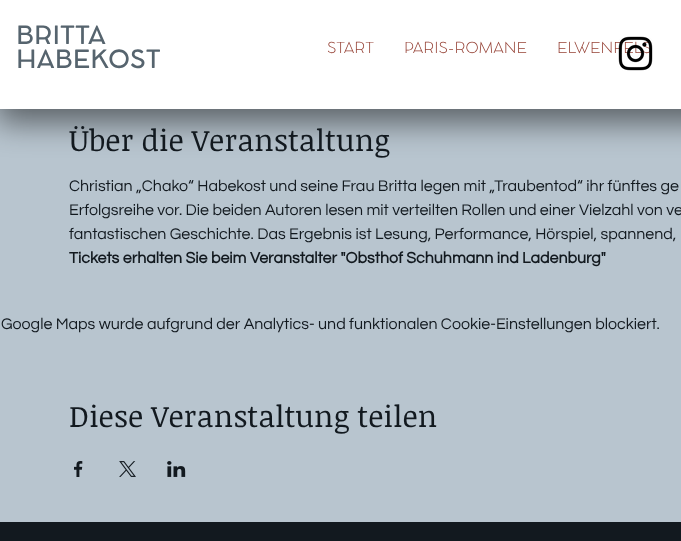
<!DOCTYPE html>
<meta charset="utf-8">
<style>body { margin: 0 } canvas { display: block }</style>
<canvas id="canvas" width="681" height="541"></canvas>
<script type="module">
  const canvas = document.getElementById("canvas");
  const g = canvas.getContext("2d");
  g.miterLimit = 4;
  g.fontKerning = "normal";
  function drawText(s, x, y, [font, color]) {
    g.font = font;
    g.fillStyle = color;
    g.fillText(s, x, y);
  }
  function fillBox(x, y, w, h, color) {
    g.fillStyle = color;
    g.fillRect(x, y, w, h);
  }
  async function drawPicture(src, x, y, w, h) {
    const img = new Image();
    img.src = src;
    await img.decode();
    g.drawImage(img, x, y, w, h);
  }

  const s1 = ["500 25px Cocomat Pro", "#56646E"];
  const s2 = ["300 15px Cocomat Pro", "#964337"];
  const s3 = ["30px Noticia Text", "#12191F"];
  const s4 = ["16px Questrial", "#12191F"];
  const s5 = ["bold 16px Questrial", "#12191F"];

  fillBox(0, 0, 681, 541, "#B8C5CF");
  g.fillStyle = "rgba(0, 0, 0, 0.5)";
  g.filter = "blur(15.5px)";
  g.beginPath();
  g.rect(-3, 8, 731, 115);
  g.fill();
  g.filter = "none";
  fillBox(0, 0, 681, 109, "#FFFFFF");
  drawText("BRITTA", 16, 44, s1);
  drawText("HABEKOST", 16, 68, s1);
  drawText("START", 327, 53, s2);
  drawText("PARIS-ROMANE", 404, 53, s2);
  drawText("ELWENFELS", 557, 53, s2);
  await drawPicture("pic1.png", 618, 36, 35, 35);
  drawText("Über die Veranstaltung", 69, 151, s3);
  drawText("Christian „Chako“ Habekost und seine Frau Britta legen mit „Traubentod“ ihr fünftes ge", 69, 191, s4);
  drawText("Erfolgsreihe vor. Die beiden Autoren lesen mit verteilten Rollen und einer Vielzahl von ve", 69, 215, s4);
  drawText("fantastischen Geschichte. Das Ergebnis ist Lesung, Performance, Hörspiel, spannend,", 69, 239, s4);
  drawText("Tickets erhalten Sie beim Veranstalter \"Obsthof Schuhmann ind Ladenburg\"", 69, 263, s5);
  drawText("Google Maps wurde aufgrund der Analytics- und funktionalen Cookie-Einstellungen blockiert.", 1, 329, s4);
  drawText("Diese Veranstaltung teilen", 69, 427, s3);
  await drawPicture("pic2.png", 74, 461, 9, 16);
  await drawPicture("pic3.png", 119, 461, 17, 16);
  await drawPicture("pic4.png", 167, 461, 19, 16);
  fillBox(0, 522, 681, 19, "#12191F");
</script>
